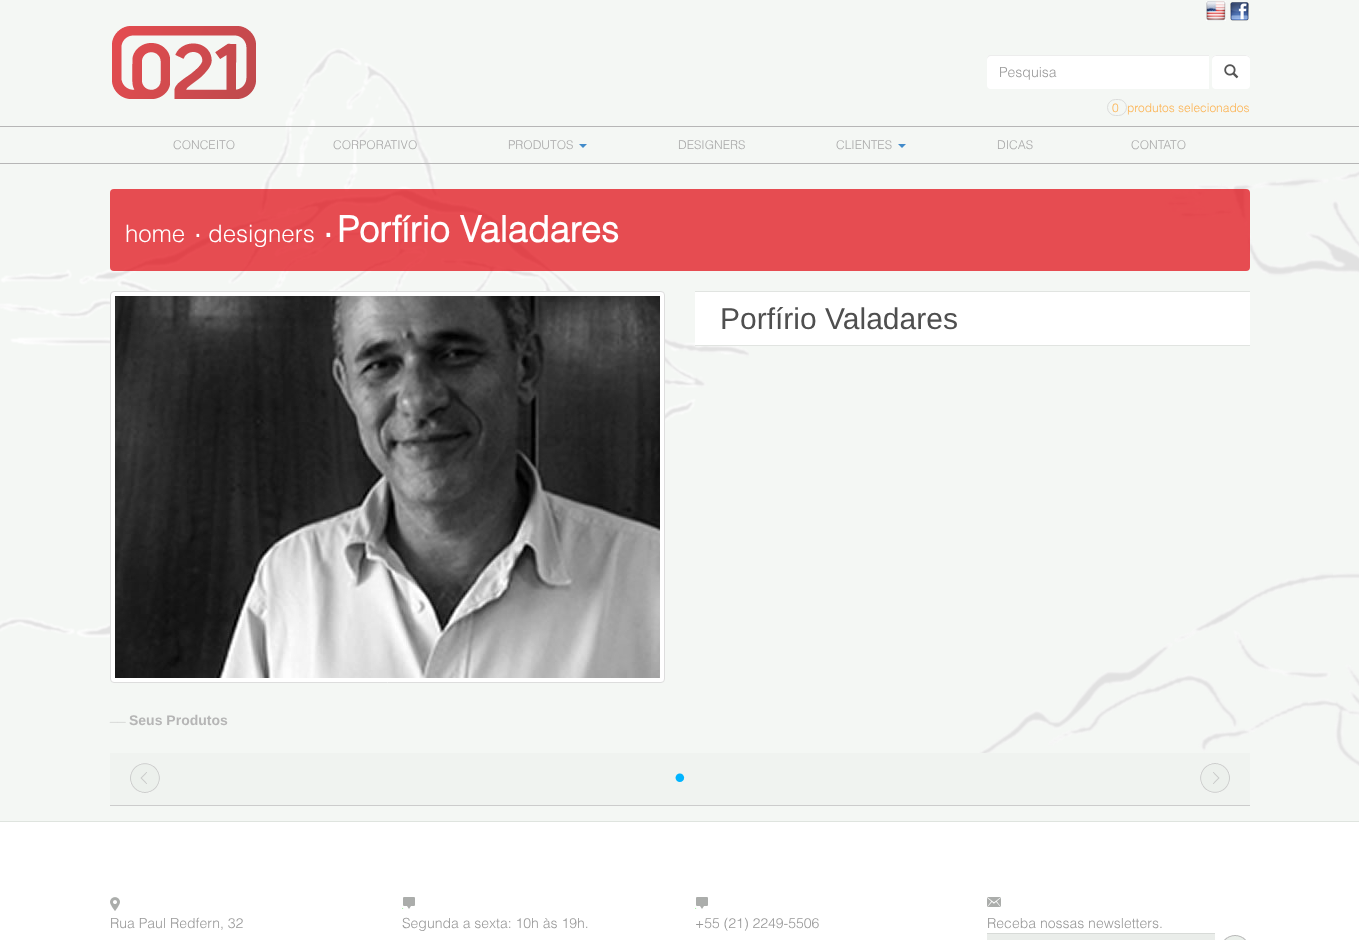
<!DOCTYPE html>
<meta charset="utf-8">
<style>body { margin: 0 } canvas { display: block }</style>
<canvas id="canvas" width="1359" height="940"></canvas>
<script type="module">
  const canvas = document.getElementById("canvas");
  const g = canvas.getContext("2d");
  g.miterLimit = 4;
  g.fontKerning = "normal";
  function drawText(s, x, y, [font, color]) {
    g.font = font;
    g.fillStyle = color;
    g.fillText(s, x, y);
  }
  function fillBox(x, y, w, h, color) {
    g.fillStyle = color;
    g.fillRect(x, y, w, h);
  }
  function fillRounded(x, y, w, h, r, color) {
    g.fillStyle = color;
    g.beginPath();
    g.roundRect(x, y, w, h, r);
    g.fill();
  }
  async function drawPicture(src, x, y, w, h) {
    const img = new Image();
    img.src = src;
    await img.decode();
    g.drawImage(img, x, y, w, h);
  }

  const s1 = ["300 14px Helvetica", "#999999"];
  const s2 = ["300 12px Helvetica", "#FCB352"];
  const s3 = ["300 12px Helvetica", "#A9A9A9"];
  const s4 = ["300 24px Helvetica", "#FFFFFF"];
  const s5 = ["300 35px Helvetica", "#FFFFFF"];
  const s6 = ["bold 35px Helvetica", "#FFFFFF"];
  const s7 = ["bold 36px Helvetica", "#FFFFFF"];
  const s8 = ["30px Liberation Sans", "#4F4F4F"];
  const s9 = ["14px Liberation Sans", "#D6D7D6"];
  const s10 = ["bold 14px Liberation Sans", "#B6B6B6"];
  const s11 = ["bold 22px Helvetica", "#00B4FF"];

  fillBox(0, 0, 1359, 940, "#F4F7F4");
  await drawPicture("pic1.png", 0, 48, 749, 591);
  await drawPicture("pic2.png", 112, 26, 144, 73);
  await drawPicture("pic3.png", 1206, 1, 20, 20);
  await drawPicture("pic4.png", 1230, 2, 19, 19);
  g.fillStyle = "#FFFFFF";
  g.beginPath();
  g.roundRect(987, 55, 222, 34, [4, 0, 0, 4]);
  g.fill();
  g.fillStyle = "rgba(0, 0, 0, 0.07)";
  g.beginPath();
  g.moveTo(991, 56);
  g.lineTo(1209, 56);
  g.lineTo(1209, 55);
  g.lineTo(991, 55);
  g.bezierCurveTo(988, 55, 987, 57, 987, 60);
  g.bezierCurveTo(987, 58, 989, 56, 991, 56);
  g.closePath();
  g.fill();
  drawText("Pesquisa", 999, 77, s1);
  fillRounded(1212, 55, 38, 34, 4, "#FFFFFF");
  g.fillStyle = "rgba(0, 0, 0, 0.07)";
  g.beginPath();
  g.moveTo(1216, 56);
  g.lineTo(1246, 56);
  g.bezierCurveTo(1248, 56, 1250, 58, 1250, 60);
  g.bezierCurveTo(1250, 54, 1245.5, 55, 1241, 55);
  g.lineTo(1221, 55);
  g.bezierCurveTo(1216.5, 55, 1212, 54, 1212, 60);
  g.bezierCurveTo(1212, 58, 1214, 56, 1216, 56);
  g.closePath();
  g.fill();
  await drawPicture("pic5.png", 1224, 64, 15, 15);
  g.beginPath();
  g.roundRect(1107.5, 99.5, 19, 16, 8);
  g.strokeStyle = "#DBDCDB";
  g.stroke();
  drawText("0", 1112, 112, s2);
  drawText("produtos selecionados", 1127, 112, s2);
  fillBox(0, 126, 1359, 1, "#B6B6B6");
  fillBox(0, 163, 1359, 1, "#B6B6B6");
  drawText("CONCEITO", 173, 149, s3);
  drawText("CORPORATIVO", 333, 149, s3);
  drawText("PRODUTOS", 508, 149, s3);
  g.fillStyle = "#428BCA";
  g.beginPath();
  g.moveTo(579, 144);
  g.lineTo(587, 144);
  g.lineTo(583, 148);
  g.closePath();
  g.fill();
  drawText("DESIGNERS", 678, 149, s3);
  drawText("CLIENTES", 836, 149, s3);
  g.fillStyle = "#428BCA";
  g.beginPath();
  g.moveTo(898, 144);
  g.lineTo(906, 144);
  g.lineTo(902, 148);
  g.closePath();
  g.fill();
  drawText("DICAS", 997, 149, s3);
  drawText("CONTATO", 1131, 149, s3);
  await drawPicture("pic9.png", 978, 171, 381, 595);
  fillRounded(110, 189, 1140, 82, 4, "rgba(224, 3, 12, 0.7)");
  drawText("home", 125, 242, s4);
  drawText(".", 193, 237, s5);
  drawText("designers", 208, 242, s4);
  drawText(".", 323, 237, s6);
  drawText("Porfírio Valadares", 337, 242, s7);
  g.beginPath();
  g.roundRect(110.5, 291.5, 554, 391, 3.5);
  g.fill();
  g.strokeStyle = "#DDDDDD";
  g.stroke();
  await drawPicture("pic6.png", 115, 296, 545, 382);
  fillBox(695, 292, 555, 53, "#FFFFFF");
  fillBox(695, 291, 555, 1, "#E1E4E1");
  fillBox(695, 345, 555, 1, "#E1E4E1");
  drawText("Porfírio Valadares", 720, 329, s8);
  drawText("__", 110, 720, s9);
  drawText("Seus Produtos", 129, 725, s10);
  fillBox(110, 753, 1140, 52, "#F0F3F0");
  fillBox(110, 805, 1140, 1, "#CCCCCC");
  await drawPicture("pic7.png", 130, 763, 30, 30);
  drawText("•", 674, 786, s11);
  await drawPicture("pic8.png", 1200, 763, 30, 30);
  fillBox(0, 822, 1359, 118, "#FFFFFF");
  fillBox(0, 821, 1359, 1, "#DFE4DF");
  await drawPicture("pic10.png", 110, 897, 10, 14);
  drawText("Rua Paul Redfern, 32", 110, 928, s1);
  await drawPicture("pic11.png", 402, 897, 13, 12);
  drawText("Segunda a sexta: 10h às 19h.", 402, 928, s1);
  await drawPicture("pic11.png", 695, 897, 13, 12);
  drawText("+55 (21) 2249-5506", 695, 928, s1);
  await drawPicture("pic12.png", 987, 897, 14, 10);
  drawText("Receba nossas newsletters.", 987, 928, s1);
  fillBox(987, 934, 228, 6, "#EAEDEA");
  fillBox(987, 933, 228, 1, "#D8DBD8");
  await drawPicture("pic13.png", 1224, 935, 22, 5);
</script>
